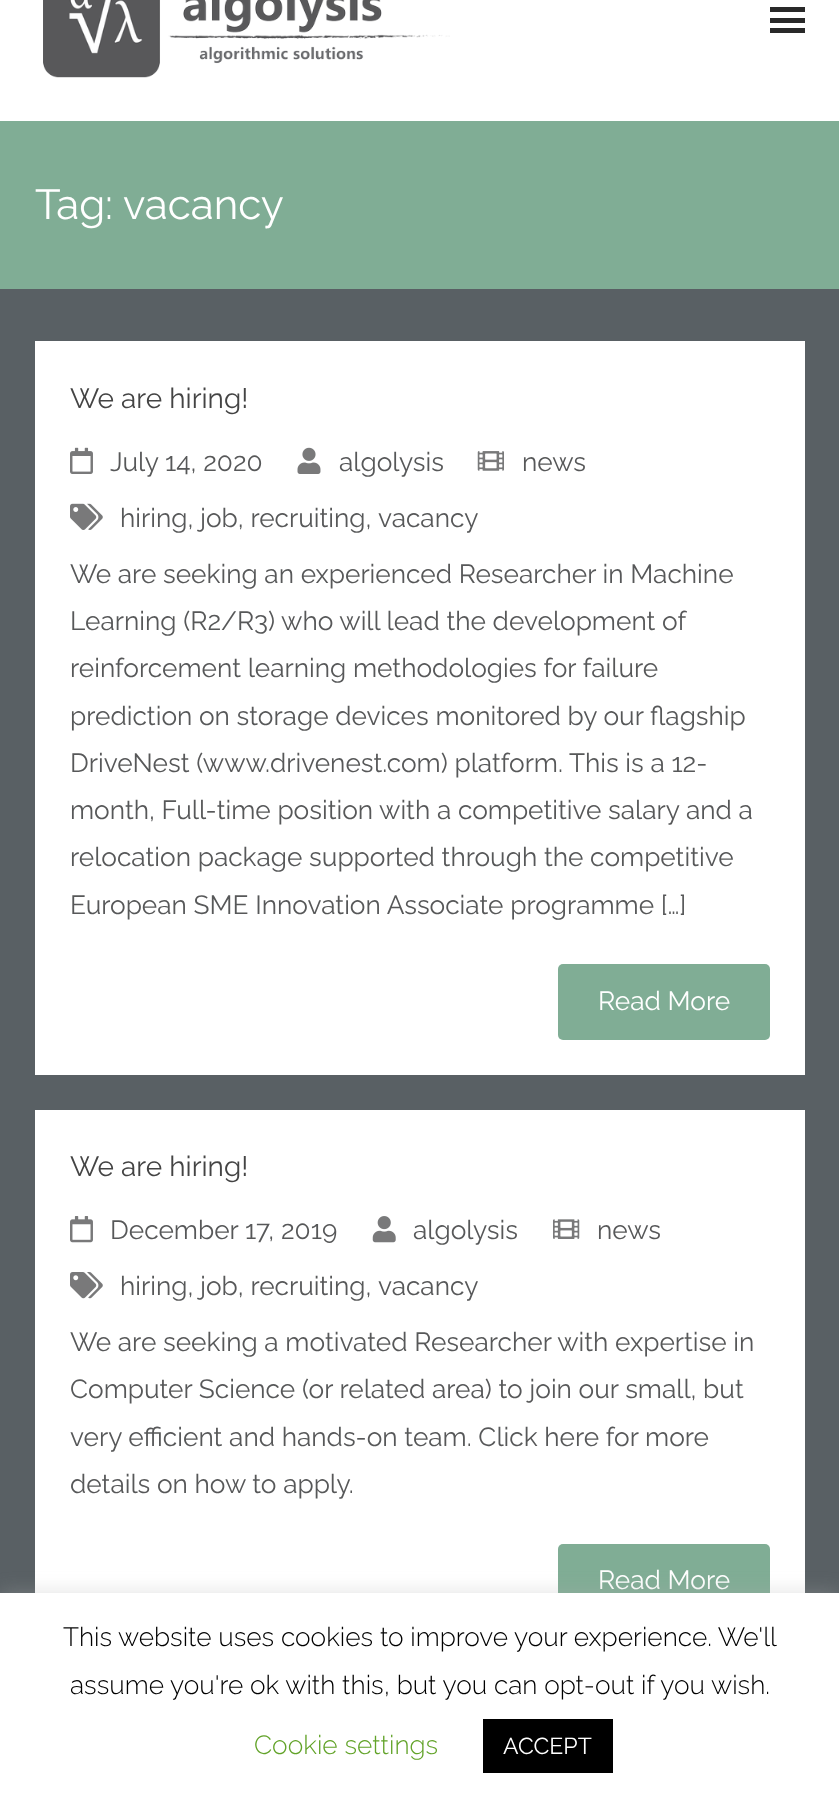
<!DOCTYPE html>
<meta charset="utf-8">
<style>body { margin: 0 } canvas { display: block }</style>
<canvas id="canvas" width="839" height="1801"></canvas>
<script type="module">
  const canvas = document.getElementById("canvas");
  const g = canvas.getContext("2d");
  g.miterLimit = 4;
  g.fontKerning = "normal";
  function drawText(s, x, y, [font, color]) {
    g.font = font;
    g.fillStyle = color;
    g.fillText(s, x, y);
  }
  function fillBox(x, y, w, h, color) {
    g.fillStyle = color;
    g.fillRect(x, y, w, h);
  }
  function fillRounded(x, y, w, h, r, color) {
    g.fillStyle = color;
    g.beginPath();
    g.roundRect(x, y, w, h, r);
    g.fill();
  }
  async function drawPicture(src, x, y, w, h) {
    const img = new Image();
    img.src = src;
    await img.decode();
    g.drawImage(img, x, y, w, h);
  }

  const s1 = ["42px Raleway", "#FFFFFF"];
  const s2 = ["28px Raleway", "#444444"];
  const s3 = ["26.25px Raleway", "#575859"];
  const s4 = ["26.25px Raleway", "#FFFFFF"];
  const s5 = ["300 26.25px Raleway", "#000000"];
  const s6 = ["300 26.25px Raleway", "#62A329"];
  const s7 = ["23px Raleway", "#FFFFFF"];

  fillBox(0, 0, 839, 1801, "#FFFFFF");
  await drawPicture("pic1.png", 43, 0, 407, 78);
  fillBox(770, 7, 35, 5, "#292929");
  fillBox(770, 18, 35, 5, "#292929");
  fillBox(770, 28, 35, 5, "#292929");
  fillBox(0, 121, 839, 168, "#80AD95");
  drawText("Tag:", 35, 219, s1);
  drawText("vacancy", 123, 219, s1);
  fillBox(0, 289, 839, 1304, "#596064");
  fillBox(35, 341, 770, 734, "#FFFFFF");
  drawText("We are hiring!", 70, 408, s2);
  await drawPicture("pic2.png", 70, 447, 23, 27);
  drawText("July 14, 2020", 110, 471, s3);
  await drawPicture("pic3.png", 297, 447, 24, 27);
  drawText("algolysis", 339, 471, s3);
  await drawPicture("pic4.png", 477, 451, 27, 20);
  drawText("news", 522, 471, s3);
  await drawPicture("pic5.png", 70, 503, 33, 27);
  drawText("hiring, job, recruiting,", 120, 527, s3);
  drawText("vacancy", 378, 527, s3);
  drawText("We are seeking an experienced Researcher in Machine", 70, 583, s3);
  drawText("Learning (R2/R3) who will lead the development of", 70, 630, s3);
  drawText("reinforcement learning methodologies for failure", 70, 677, s3);
  drawText("prediction on storage devices monitored by our flagship", 70, 725, s3);
  drawText("DriveNest (www.drivenest.com) platform. This is a 12-", 70, 772, s3);
  drawText("month, Full-time position with a competitive salary and a", 70, 819, s3);
  drawText("relocation package supported through the competitive", 70, 866, s3);
  drawText("European SME Innovation Associate programme […]", 70, 914, s3);
  fillRounded(558, 964, 212, 76, 5, "#80AD95");
  drawText("Read More", 598, 1010, s4);
  fillBox(35, 1110, 770, 483, "#FFFFFF");
  drawText("We are hiring!", 70, 1176, s2);
  await drawPicture("pic6.png", 70, 1216, 23, 27);
  drawText("December 17, 2019", 110, 1239, s3);
  await drawPicture("pic7.png", 372, 1216, 24, 27);
  drawText("algolysis", 413, 1239, s3);
  await drawPicture("pic8.png", 553, 1219, 27, 20);
  drawText("news", 597, 1239, s3);
  await drawPicture("pic9.png", 70, 1272, 33, 27);
  drawText("hiring, job, recruiting,", 120, 1295, s3);
  drawText("vacancy", 378, 1295, s3);
  drawText("We are seeking a motivated Researcher with expertise in", 70, 1351, s3);
  drawText("Computer Science (or related area) to join our small, but", 70, 1398, s3);
  drawText("very efficient and hands-on team. Click here for more", 70, 1446, s3);
  drawText("details on how to apply.", 70, 1493, s3);
  fillRounded(558, 1544, 212, 75, 5, "#80AD95");
  drawText("Read More", 598, 1589, s4);
  g.fillStyle = "rgba(172, 171, 171, 0.3)";
  g.filter = "blur(9px)";
  g.beginPath();
  g.rect(0, 1591, 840, 210);
  g.fill();
  g.filter = "none";
  fillBox(0, 1593, 839, 208, "#FFFFFF");
  drawText("This website uses cookies to improve your experience. We'll", 63, 1646, s5);
  drawText("assume you're ok with this, but you can opt-out if you wish.", 70, 1694, s5);
  drawText("Cookie settings", 254, 1754, s6);
  fillBox(483, 1719, 130, 54, "#000000");
  drawText("ACCEPT", 503, 1754, s7);
</script>
